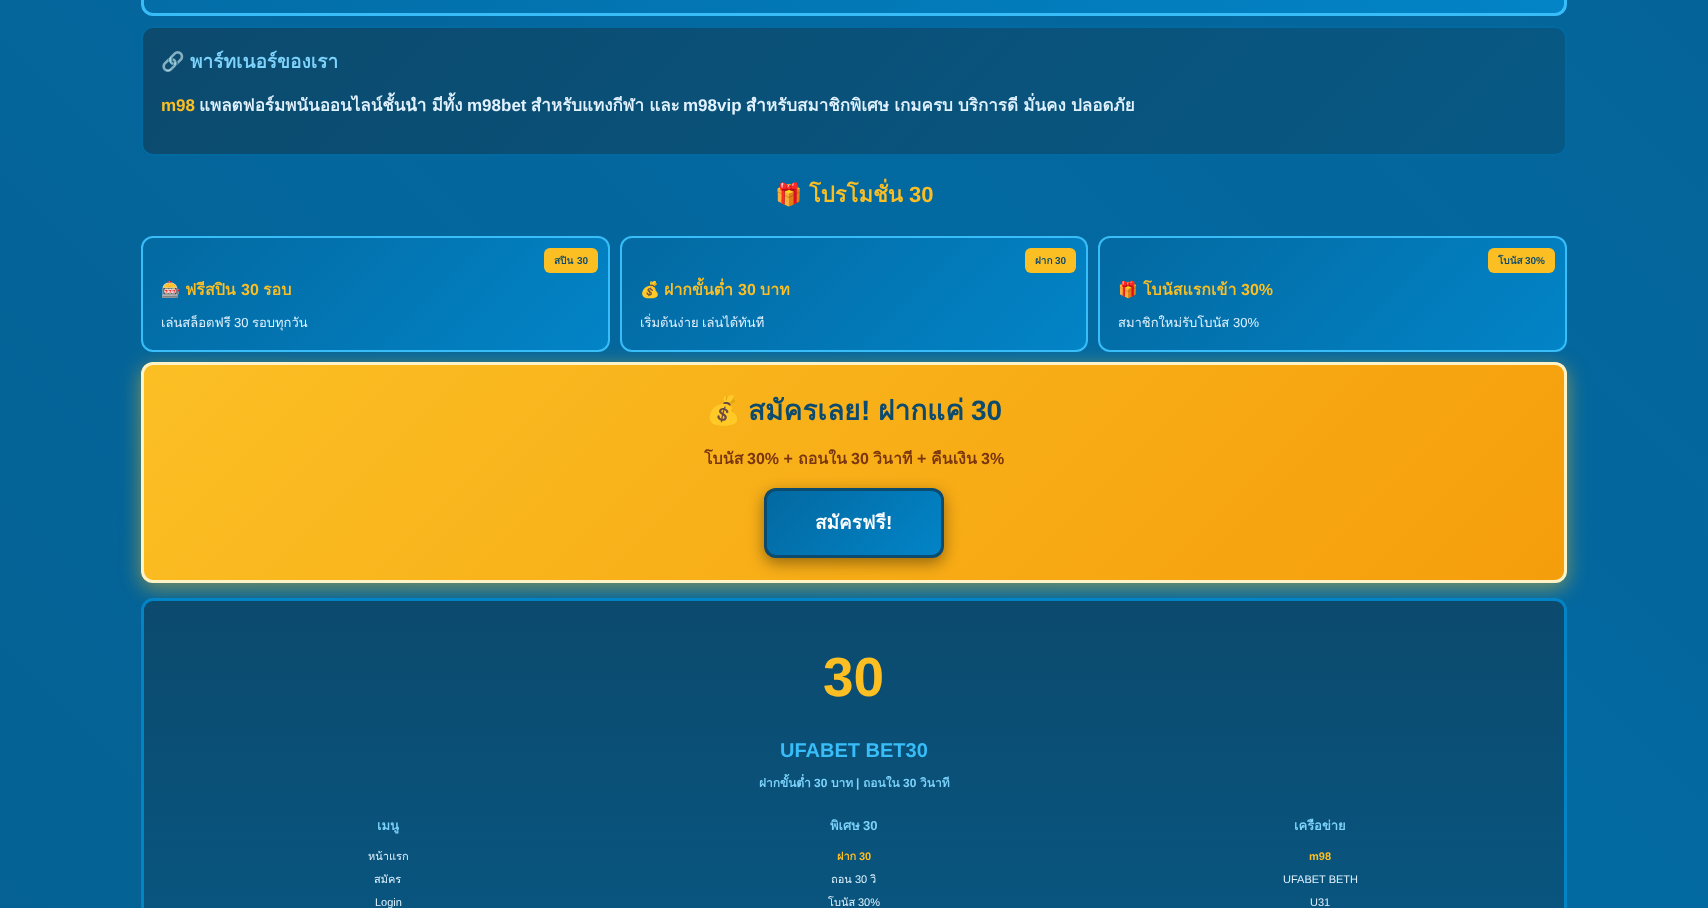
<!DOCTYPE html>
<meta charset="utf-8">
<style>body { margin: 0 } canvas { display: block }</style>
<canvas id="canvas" width="1708" height="908"></canvas>
<script type="module">
  const canvas = document.getElementById("canvas");
  const g = canvas.getContext("2d");
  g.miterLimit = 4;
  g.fontKerning = "normal";
  function drawText(s, x, y, [font, color]) {
    g.font = font;
    g.fillStyle = color;
    g.fillText(s, x, y);
  }
  function fillBox(x, y, w, h, color) {
    g.fillStyle = color;
    g.fillRect(x, y, w, h);
  }
  function fillRounded(x, y, w, h, r, color) {
    g.fillStyle = color;
    g.beginPath();
    g.roundRect(x, y, w, h, r);
    g.fill();
  }
  let gradient;

  const s1 = ["bold 19px Noto Color Emoji", "#7DD3FC"];
  const s2 = ["bold 19px Loma", "#7DD3FC"];
  const s3 = ["bold 17px Liberation Sans", "#FBBF24"];
  const s4 = ["bold 17px Loma", "#E0F2FE"];
  const s5 = ["bold 17px Liberation Sans", "#E0F2FE"];
  const s6 = ["bold 22px Noto Color Emoji", "#FBBF24"];
  const s7 = ["bold 22px Loma", "#FBBF24"];
  const s8 = ["bold 22px Liberation Sans", "#FBBF24"];
  const s9 = ["bold 10px Loma", "#0C4A6E"];
  const s10 = ["bold 10px Liberation Sans", "#0C4A6E"];
  const s11 = ["bold 16px Noto Color Emoji", "#FBBF24"];
  const s12 = ["bold 16px Loma", "#FBBF24"];
  const s13 = ["bold 16px Liberation Sans", "#FBBF24"];
  const s14 = ["13px Loma", "#E0F2FE"];
  const s15 = ["13px Liberation Sans", "#E0F2FE"];
  const s16 = ["bold 28px Noto Color Emoji", "#0C4A6E"];
  const s17 = ["bold 28px Loma", "#0C4A6E"];
  const s18 = ["bold 28px Liberation Sans", "#0C4A6E"];
  const s19 = ["bold 16px Loma", "#78350F"];
  const s20 = ["bold 16px Liberation Sans", "#78350F"];
  const s21 = ["bold 19px Loma", "#FFFFFF"];
  const s22 = ["bold 19px Liberation Sans", "#FFFFFF"];
  const s23 = ["bold 55px Liberation Sans", "#FBBF24"];
  const s24 = ["bold 20px Liberation Sans", "#38BDF8"];
  const s25 = ["bold 12px Loma", "#7DD3FC"];
  const s26 = ["bold 12px Liberation Sans", "#7DD3FC"];
  const s27 = ["bold 13px Loma", "#7DD3FC"];
  const s28 = ["11px Loma", "#E0F2FE"];
  const s29 = ["11px Liberation Sans", "#E0F2FE"];
  const s30 = ["bold 13px Liberation Sans", "#7DD3FC"];
  const s31 = ["bold 11px Loma", "#FBBF24"];
  const s32 = ["bold 11px Liberation Sans", "#FBBF24"];

  fillBox(0, 0, 1708, 908, "#FFFFFF");
  gradient = g.createLinearGradient(69, 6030, 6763, -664);
  gradient.addColorStop(0, "#0C4A6E");
  gradient.addColorStop(0.25, "#075985");
  gradient.addColorStop(0.5, "#0369A1");
  gradient.addColorStop(0.75, "#075985");
  gradient.addColorStop(1, "#0C4A6E");
  g.fillStyle = gradient;
  g.fillRect(0, 0, 1708, 908);
  gradient = g.createLinearGradient(432, -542, 1276, 301);
  gradient.addColorStop(0, "#0369A1");
  gradient.addColorStop(1, "#0284C7");
  g.fillStyle = gradient;
  g.fillRect(144, 0, 1420, 13);
  g.beginPath();
  g.roundRect(142.5, -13.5, 1423, 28, 10.5);
  g.strokeStyle = "#38BDF8";
  g.lineWidth = 3;
  g.stroke();
  g.save();
  g.beginPath();
  g.roundRect(141, 26, 1426, 130, 12);
  g.clip();
  gradient = g.createLinearGradient(467, -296, 1241, 478);
  gradient.addColorStop(0, "#0C4A6E");
  gradient.addColorStop(1, "#075985");
  g.fillStyle = gradient;
  g.fillRect(143, 28, 1422, 126);
  g.restore();
  g.beginPath();
  g.roundRect(142, 27, 1424, 128, 11);
  g.strokeStyle = "#0369A1";
  g.lineWidth = 2;
  g.stroke();
  drawText("🔗", 161, 68, s1);
  drawText("พาร์ทเนอร์ของเรา", 190, 68, s2);
  drawText("m98", 161, 111, s3);
  g.wordSpacing = "-0.5px";
  drawText("แพลตฟอร์มพนันออนไลน์ชั้นนำ มีทั้ง", 199, 111, s4);
  g.wordSpacing = "0px";
  drawText("m98bet", 467, 111, s5);
  g.wordSpacing = "-0.5px";
  drawText("สำหรับแทงกีฬา และ", 531, 111, s4);
  g.wordSpacing = "0px";
  drawText("m98vip", 683, 111, s5);
  g.wordSpacing = "-0.5px";
  drawText("สำหรับสมาชิกพิเศษ เกมครบ บริการดี มั่นคง ปลอดภัย", 746, 111, s4);
  g.wordSpacing = "0px";
  drawText("🎁", 775, 202, s6);
  drawText("โปรโมชั่น", 809, 202, s7);
  drawText("30", 909, 202, s8);
  g.fillStyle = "rgba(251, 191, 36, 0.5)";
  g.filter = "blur(10px)";
  g.beginPath();
  g.roundRect(141, 367, 1426, 221, 12);
  g.fill();
  g.filter = "none";
  g.save();
  g.beginPath();
  g.roundRect(141, 236, 469, 116, 12);
  g.clip();
  gradient = g.createLinearGradient(231, 150, 520, 438);
  gradient.addColorStop(0, "#0369A1");
  gradient.addColorStop(1, "#0284C7");
  g.fillStyle = gradient;
  g.fillRect(143, 238, 465, 112);
  g.restore();
  g.beginPath();
  g.roundRect(142, 237, 467, 114, 11);
  g.strokeStyle = "#38BDF8";
  g.stroke();
  fillRounded(544, 248, 54, 25, 6, "#FBBF24");
  drawText("สปิน", 554, 264, s9);
  drawText("30", 577, 264, s10);
  drawText("🎰", 161, 295, s11);
  drawText("ฟรีสปิน", 185, 295, s12);
  drawText("30", 241, 295, s13);
  drawText("รอบ", 263, 295, s12);
  drawText("เล่นสล็อตฟรี", 161, 327, s14);
  drawText("30", 234, 327, s15);
  drawText("รอบทุกวัน", 252, 327, s14);
  g.save();
  g.beginPath();
  g.roundRect(620, 236, 468, 116, 12);
  g.clip();
  gradient = g.createLinearGradient(710, 150, 998, 438);
  gradient.addColorStop(0, "#0369A1");
  gradient.addColorStop(1, "#0284C7");
  g.fillStyle = gradient;
  g.fillRect(622, 238, 464, 112);
  g.restore();
  g.beginPath();
  g.roundRect(621, 237, 466, 114, 11);
  g.stroke();
  fillRounded(1025, 248, 51, 25, 6, "#FBBF24");
  drawText("ฝาก", 1035, 264, s9);
  drawText("30", 1055, 264, s10);
  drawText("💰", 640, 295, s11);
  drawText("ฝากขั้นต่ำ", 664, 295, s12);
  drawText("30", 738, 295, s13);
  drawText("บาท", 760, 295, s12);
  g.wordSpacing = "-1px";
  drawText("เริ่มต้นง่าย เล่นได้ทันที", 640, 327, s14);
  g.save();
  g.beginPath();
  g.roundRect(1098, 236, 469, 116, 12);
  g.clip();
  gradient = g.createLinearGradient(1188, 150, 1477, 438);
  gradient.addColorStop(0, "#0369A1");
  gradient.addColorStop(1, "#0284C7");
  g.fillStyle = gradient;
  g.fillRect(1100, 238, 465, 112);
  g.restore();
  g.beginPath();
  g.roundRect(1099, 237, 467, 114, 11);
  g.stroke();
  fillRounded(1488, 248, 67, 25, 6, "#FBBF24");
  g.wordSpacing = "0px";
  drawText("โบนัส", 1498, 264, s9);
  drawText("30%", 1525, 264, s10);
  drawText("🎁", 1118, 295, s11);
  drawText("โบนัสแรกเข้า", 1143, 295, s12);
  drawText("30%", 1241, 295, s13);
  drawText("สมาชิกใหม่รับโบนัส", 1118, 327, s14);
  drawText("30%", 1233, 327, s15);
  g.save();
  g.beginPath();
  g.roundRect(141, 362, 1426, 221, 12);
  g.clip();
  gradient = g.createLinearGradient(445, 64, 1263, 881);
  gradient.addColorStop(0, "#FBBF24");
  gradient.addColorStop(1, "#F59E0B");
  g.fillStyle = gradient;
  g.fillRect(144, 365, 1420, 215);
  g.restore();
  g.beginPath();
  g.roundRect(142.5, 363.5, 1423, 218, 10.5);
  g.strokeStyle = "#FEF3C7";
  g.lineWidth = 3;
  g.stroke();
  drawText("💰", 706, 420, s16);
  drawText("สมัครเลย", 748, 420, s17);
  drawText("!", 861, 420, s18);
  drawText("ฝากแค่", 878, 420, s17);
  drawText("30", 971, 420, s18);
  drawText("โบนัส", 704, 464, s19);
  drawText("30% +", 747, 464, s20);
  drawText("ถอนใน", 798, 464, s19);
  drawText("30", 851, 464, s20);
  drawText("วินาที", 873, 464, s19);
  drawText("+", 917, 464, s20);
  drawText("คืนเงิน", 931, 464, s19);
  drawText("3%", 981, 464, s20);
  g.fillStyle = "rgba(0, 0, 0, 0.4)";
  g.filter = "blur(7.5px)";
  g.beginPath();
  g.roundRect(764, 493, 180, 70, 12);
  g.fill();
  g.filter = "none";
  g.save();
  g.beginPath();
  g.roundRect(764, 488, 180, 70, 12);
  g.clip();
  gradient = g.createLinearGradient(795, 464, 914, 583);
  gradient.addColorStop(0, "#0369A1");
  gradient.addColorStop(1, "#0284C7");
  g.fillStyle = gradient;
  g.fillRect(767, 491, 174, 64);
  g.restore();
  g.beginPath();
  g.roundRect(765.5, 489.5, 177, 67, 10.5);
  g.strokeStyle = "#0C4A6E";
  g.stroke();
  drawText("สมัครฟรี", 815, 529, s21);
  drawText("!", 886, 529, s22);
  g.save();
  g.beginPath();
  g.roundRect(141, 598, 1426, 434, 12);
  g.clip();
  gradient = g.createLinearGradient(854, 601, 854, 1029);
  gradient.addColorStop(0, "#0C4A6E");
  gradient.addColorStop(1, "#075985");
  g.fillStyle = gradient;
  g.fillRect(141, 601, 1426, 307);
  g.restore();
  g.beginPath();
  g.roundRect(142.5, 599.5, 1423, 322, 10.5);
  g.strokeStyle = "#0284C7";
  g.stroke();
  drawText("30", 823, 696, s23);
  drawText("UFABET BET30", 780, 757, s24);
  drawText("ฝากขั้นต่ำ", 759, 787, s25);
  drawText("30", 814, 787, s26);
  drawText("บาท", 831, 787, s25);
  drawText("|", 856, 787, s26);
  drawText("ถอนใน", 863, 787, s25);
  drawText("30", 903, 787, s26);
  drawText("วินาที", 920, 787, s25);
  drawText("เมนู", 377, 830, s27);
  drawText("หน้าแรก", 368, 860, s28);
  drawText("สมัคร", 374, 883, s28);
  drawText("Login", 375, 906, s29);
  drawText("พิเศษ", 830, 830, s27);
  drawText("30", 863, 830, s30);
  drawText("ฝาก", 837, 860, s31);
  drawText("30", 859, 860, s32);
  drawText("ถอน", 831, 883, s28);
  drawText("30", 855, 883, s29);
  drawText("วิ", 870, 883, s28);
  drawText("โบนัส", 828, 906, s28);
  drawText("30%", 858, 906, s29);
  drawText("เครือข่าย", 1294, 830, s27);
  drawText("m98", 1309, 860, s32);
  drawText("UFABET BETH", 1283, 883, s29);
  drawText("U31", 1310, 906, s29);
</script>
